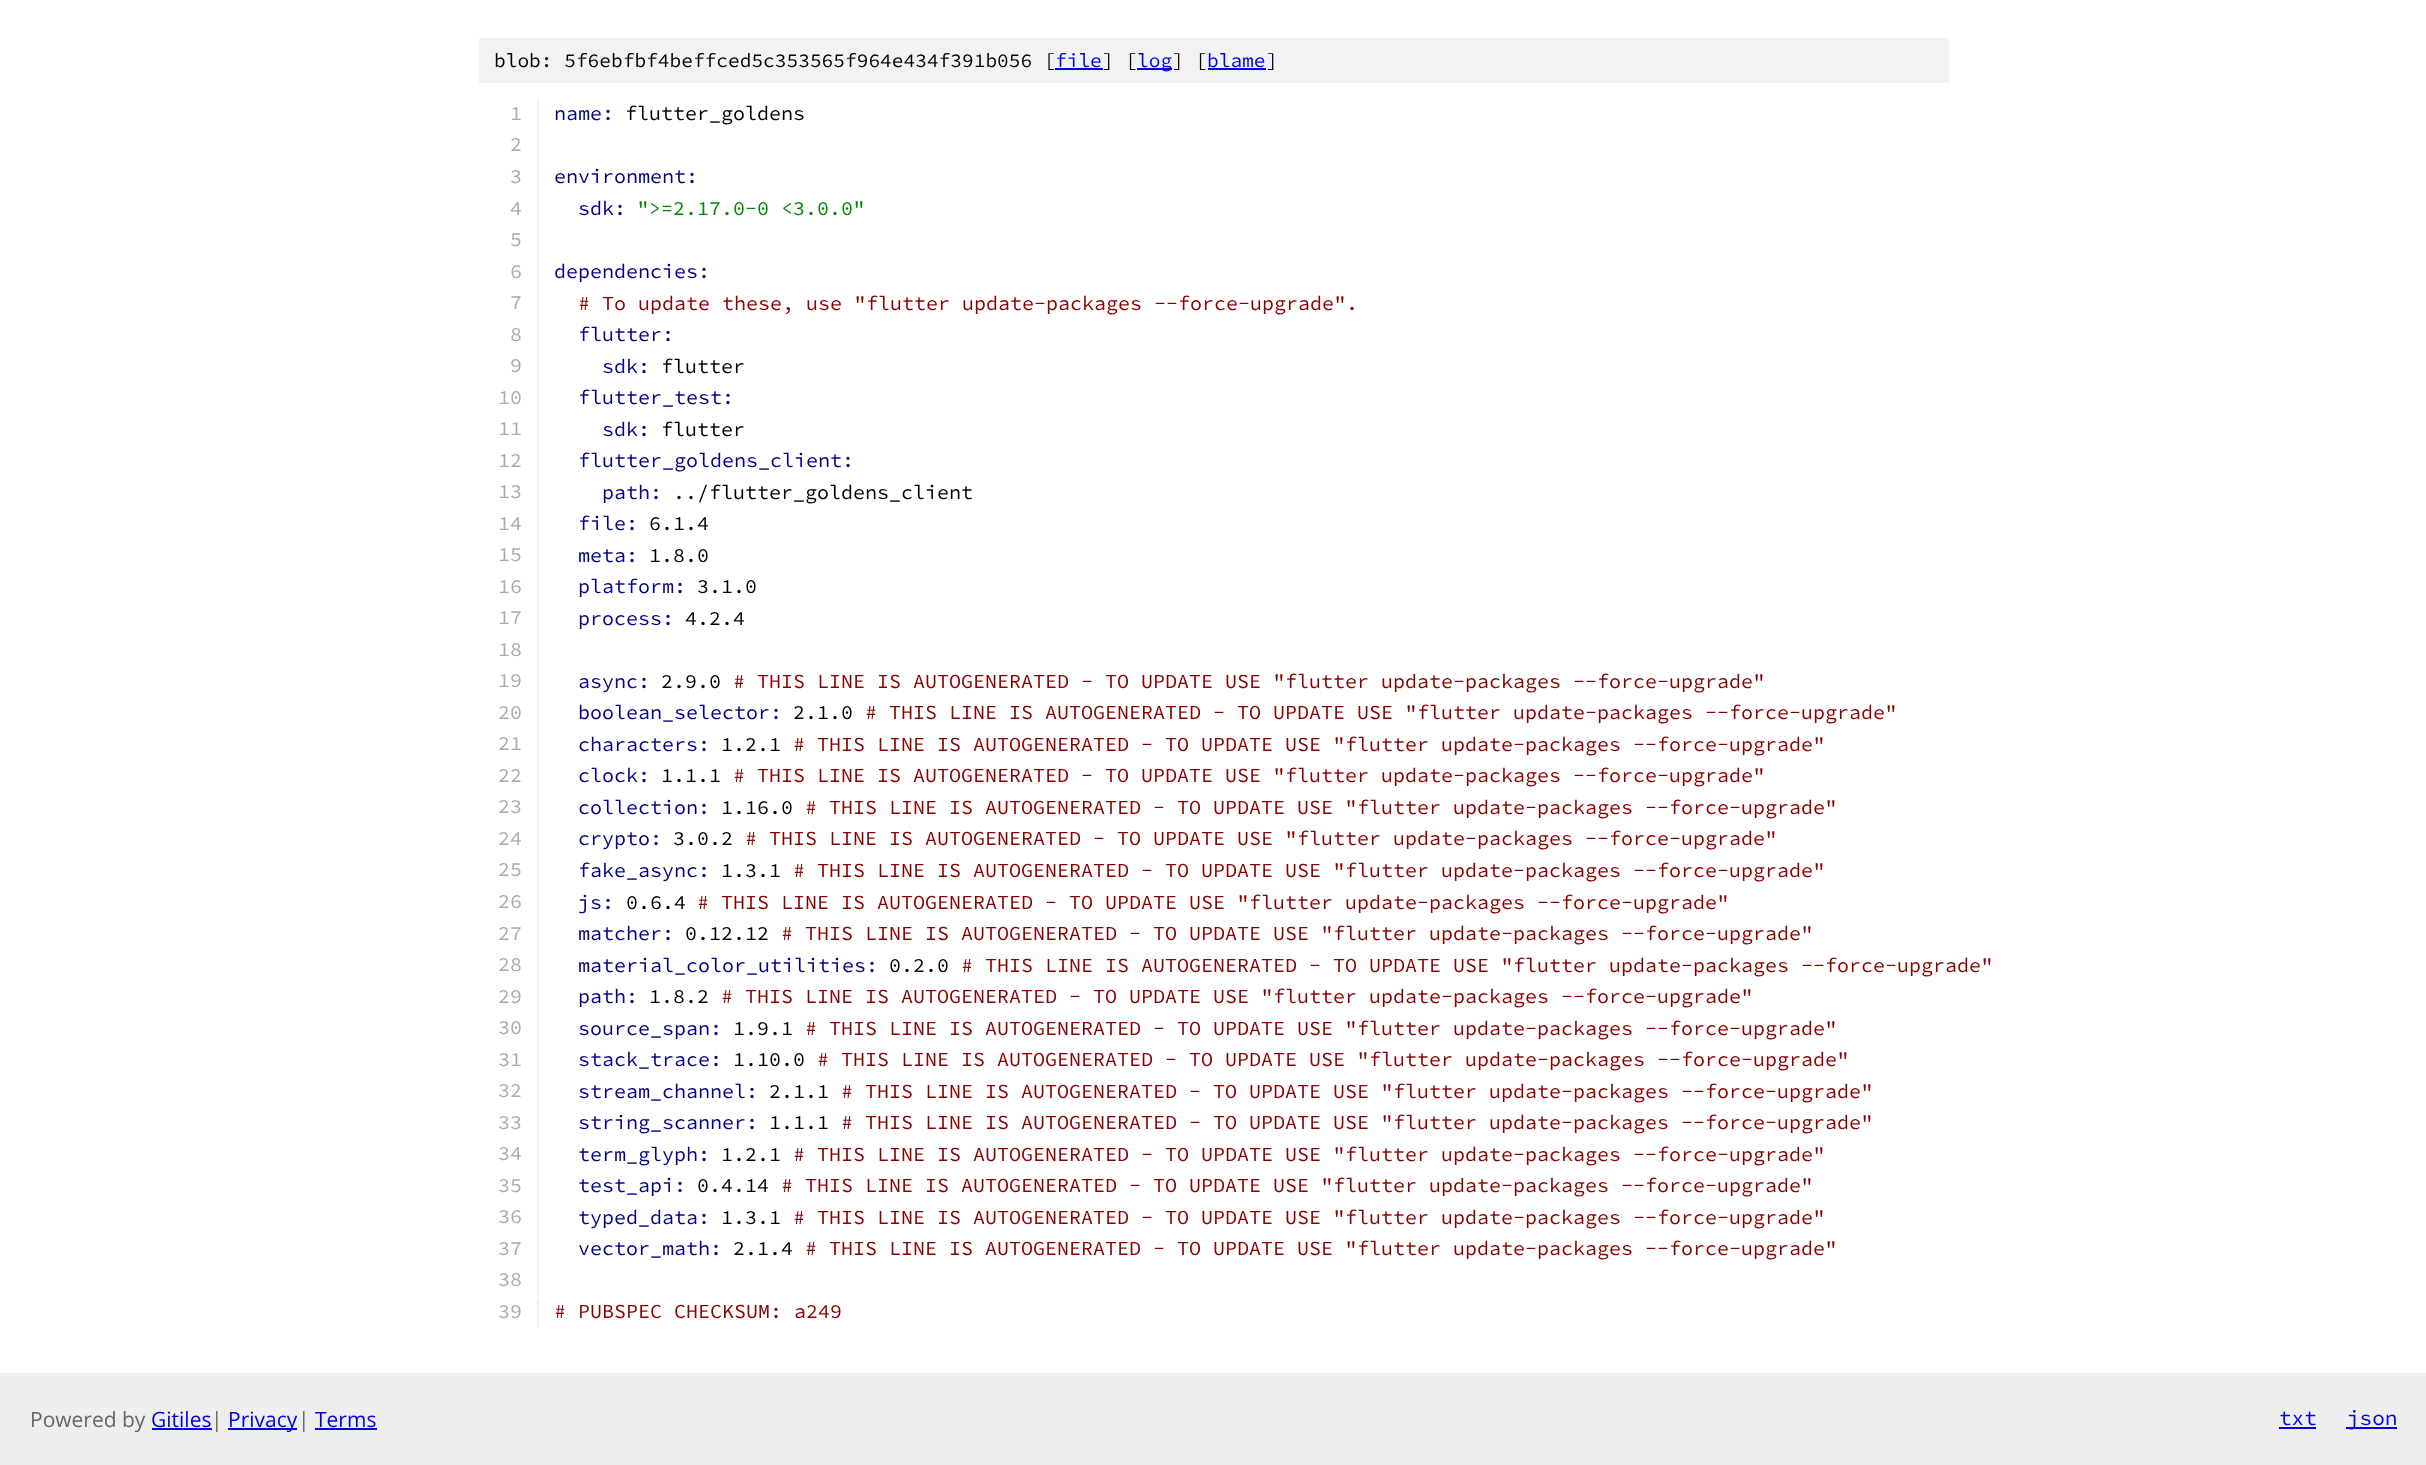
<!DOCTYPE html>
<meta charset="utf-8">
<style>body { margin: 0 } canvas { display: block }</style>
<canvas id="canvas" width="2426" height="1465"></canvas>
<script type="module">
  const canvas = document.getElementById("canvas");
  const g = canvas.getContext("2d");
  g.miterLimit = 4;
  g.fontKerning = "normal";
  function drawText(s, x, y, [font, color]) {
    g.font = font;
    g.fillStyle = color;
    g.fillText(s, x, y);
  }
  function fillBox(x, y, w, h, color) {
    g.fillStyle = color;
    g.fillRect(x, y, w, h);
  }

  const s1 = ["200 19.5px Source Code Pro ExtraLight", "#000000"];
  const s2 = ["200 19.5px Source Code Pro ExtraLight", "#0000EE"];
  const s3 = ["200 20px Source Code Pro ExtraLight", "#AAAAAA"];
  const s4 = ["200 20px Source Code Pro ExtraLight", "#000088"];
  const s5 = ["200 20px Source Code Pro ExtraLight", "#000000"];
  const s6 = ["200 20px Source Code Pro ExtraLight", "#008800"];
  const s7 = ["200 20px Source Code Pro ExtraLight", "#880000"];
  const s8 = ["21px Open Sans", "#666666"];
  const s9 = ["21px Open Sans", "#0000EE"];
  const s10 = ["200 21px Source Code Pro ExtraLight", "#0000EE"];

  fillBox(0, 0, 2426, 1465, "#FFFFFF");
  fillBox(479, 38, 1470, 45, "#F1F2F3");
  drawText("blob: 5f6ebfbf4beffced5c353565f964e434f391b056 [", 494, 67, s1);
  drawText("file", 1055, 67, s2);
  fillBox(1055, 68, 48, 2, "#0000EE");
  drawText("] [", 1102, 67, s1);
  fillBox(1137, 68, 35, 2, "#0000EE");
  drawText("log", 1137, 67, s2);
  drawText("] [", 1172, 67, s1);
  drawText("blame", 1207, 67, s2);
  fillBox(1208, 68, 58, 2, "#0000EE");
  drawText("]", 1266, 67, s1);
  fillBox(537, 99, 2, 30, "#F1F2F3");
  drawText("1", 510, 120, s3);
  drawText("name:", 554, 120, s4);
  drawText("flutter_goldens", 625, 120, s5);
  fillBox(537, 131, 2, 30, "#F1F2F3");
  drawText("2", 510, 151, s3);
  fillBox(537, 162, 2, 1040, "#F1F2F3");
  drawText("3", 510, 183, s3);
  drawText("environment:", 554, 183, s4);
  drawText("4", 510, 215, s3);
  drawText("sdk:", 578, 215, s4);
  drawText("\">=2.17.0-0 <3.0.0\"", 637, 215, s6);
  drawText("5", 510, 246, s3);
  drawText("6", 510, 278, s3);
  drawText("dependencies:", 554, 278, s4);
  drawText("7", 510, 309, s3);
  drawText("# To update these, use \"flutter update-packages --force-upgrade\".", 578, 310, s7);
  drawText("8", 510, 341, s3);
  drawText("flutter:", 578, 341, s4);
  drawText("9", 510, 372, s3);
  drawText("sdk:", 602, 373, s4);
  drawText("flutter", 661, 373, s5);
  drawText("10", 498, 404, s3);
  drawText("flutter_test:", 578, 404, s4);
  drawText("11", 498, 435, s3);
  drawText("sdk:", 602, 436, s4);
  drawText("flutter", 661, 436, s5);
  drawText("12", 498, 467, s3);
  drawText("flutter_goldens_client:", 578, 467, s4);
  drawText("13", 498, 498, s3);
  drawText("path:", 602, 499, s4);
  drawText("../flutter_goldens_client", 673, 499, s5);
  drawText("14", 498, 530, s3);
  drawText("file:", 578, 530, s4);
  drawText("6.1.4", 649, 530, s5);
  drawText("15", 498, 561, s3);
  drawText("meta:", 578, 562, s4);
  drawText("1.8.0", 649, 562, s5);
  drawText("16", 498, 593, s3);
  drawText("platform:", 578, 593, s4);
  drawText("3.1.0", 697, 593, s5);
  drawText("17", 498, 624, s3);
  drawText("process:", 578, 625, s4);
  drawText("4.2.4", 685, 625, s5);
  drawText("18", 498, 656, s3);
  drawText("19", 498, 687, s3);
  drawText("async:", 578, 688, s4);
  drawText("2.9.0", 661, 688, s5);
  drawText("# THIS LINE IS AUTOGENERATED - TO UPDATE USE \"flutter update-packages --force-upgrade\"", 733, 688, s7);
  drawText("20", 498, 719, s3);
  drawText("boolean_selector:", 578, 719, s4);
  drawText("2.1.0", 793, 719, s5);
  drawText("# THIS LINE IS AUTOGENERATED - TO UPDATE USE \"flutter update-packages --force-upgrade\"", 865, 719, s7);
  drawText("21", 498, 750, s3);
  drawText("characters:", 578, 751, s4);
  drawText("1.2.1", 721, 751, s5);
  drawText("# THIS LINE IS AUTOGENERATED - TO UPDATE USE \"flutter update-packages --force-upgrade\"", 793, 751, s7);
  drawText("22", 498, 782, s3);
  drawText("clock:", 578, 782, s4);
  drawText("1.1.1", 661, 782, s5);
  drawText("# THIS LINE IS AUTOGENERATED - TO UPDATE USE \"flutter update-packages --force-upgrade\"", 733, 782, s7);
  drawText("23", 498, 813, s3);
  drawText("collection:", 578, 814, s4);
  drawText("1.16.0", 721, 814, s5);
  drawText("# THIS LINE IS AUTOGENERATED - TO UPDATE USE \"flutter update-packages --force-upgrade\"", 805, 814, s7);
  drawText("24", 498, 845, s3);
  drawText("crypto:", 578, 845, s4);
  drawText("3.0.2", 673, 845, s5);
  drawText("# THIS LINE IS AUTOGENERATED - TO UPDATE USE \"flutter update-packages --force-upgrade\"", 745, 845, s7);
  drawText("25", 498, 876, s3);
  drawText("fake_async:", 578, 877, s4);
  drawText("1.3.1", 721, 877, s5);
  drawText("# THIS LINE IS AUTOGENERATED - TO UPDATE USE \"flutter update-packages --force-upgrade\"", 793, 877, s7);
  drawText("26", 498, 908, s3);
  drawText("js:", 578, 909, s4);
  drawText("0.6.4", 626, 909, s5);
  drawText("# THIS LINE IS AUTOGENERATED - TO UPDATE USE \"flutter update-packages --force-upgrade\"", 697, 909, s7);
  drawText("27", 498, 940, s3);
  drawText("matcher:", 578, 940, s4);
  drawText("0.12.12", 685, 940, s5);
  drawText("# THIS LINE IS AUTOGENERATED - TO UPDATE USE \"flutter update-packages --force-upgrade\"", 781, 940, s7);
  drawText("28", 498, 971, s3);
  drawText("material_color_utilities:", 578, 972, s4);
  drawText("0.2.0", 889, 972, s5);
  drawText("# THIS LINE IS AUTOGENERATED - TO UPDATE USE \"flutter update-packages --force-upgrade\"", 961, 972, s7);
  drawText("29", 498, 1003, s3);
  drawText("path:", 578, 1003, s4);
  drawText("1.8.2", 649, 1003, s5);
  drawText("# THIS LINE IS AUTOGENERATED - TO UPDATE USE \"flutter update-packages --force-upgrade\"", 721, 1003, s7);
  drawText("30", 498, 1034, s3);
  drawText("source_span:", 578, 1035, s4);
  drawText("1.9.1", 733, 1035, s5);
  drawText("# THIS LINE IS AUTOGENERATED - TO UPDATE USE \"flutter update-packages --force-upgrade\"", 805, 1035, s7);
  drawText("31", 498, 1066, s3);
  drawText("stack_trace:", 578, 1066, s4);
  drawText("1.10.0", 733, 1066, s5);
  drawText("# THIS LINE IS AUTOGENERATED - TO UPDATE USE \"flutter update-packages --force-upgrade\"", 817, 1066, s7);
  drawText("32", 498, 1097, s3);
  drawText("stream_channel:", 578, 1098, s4);
  drawText("2.1.1", 769, 1098, s5);
  drawText("# THIS LINE IS AUTOGENERATED - TO UPDATE USE \"flutter update-packages --force-upgrade\"", 841, 1098, s7);
  drawText("33", 498, 1129, s3);
  drawText("string_scanner:", 578, 1129, s4);
  drawText("1.1.1", 769, 1129, s5);
  drawText("# THIS LINE IS AUTOGENERATED - TO UPDATE USE \"flutter update-packages --force-upgrade\"", 841, 1129, s7);
  drawText("34", 498, 1160, s3);
  drawText("term_glyph:", 578, 1161, s4);
  drawText("1.2.1", 721, 1161, s5);
  drawText("# THIS LINE IS AUTOGENERATED - TO UPDATE USE \"flutter update-packages --force-upgrade\"", 793, 1161, s7);
  drawText("35", 498, 1192, s3);
  drawText("test_api:", 578, 1192, s4);
  drawText("0.4.14", 697, 1192, s5);
  drawText("# THIS LINE IS AUTOGENERATED - TO UPDATE USE \"flutter update-packages --force-upgrade\"", 781, 1192, s7);
  fillBox(537, 1203, 2, 30, "#F1F2F3");
  drawText("36", 498, 1223, s3);
  drawText("typed_data:", 578, 1224, s4);
  drawText("1.3.1", 721, 1224, s5);
  drawText("# THIS LINE IS AUTOGENERATED - TO UPDATE USE \"flutter update-packages --force-upgrade\"", 793, 1224, s7);
  fillBox(537, 1235, 2, 30, "#F1F2F3");
  drawText("37", 498, 1255, s3);
  drawText("vector_math:", 578, 1255, s4);
  drawText("2.1.4", 733, 1255, s5);
  drawText("# THIS LINE IS AUTOGENERATED - TO UPDATE USE \"flutter update-packages --force-upgrade\"", 805, 1255, s7);
  fillBox(537, 1266, 2, 30, "#F1F2F3");
  drawText("38", 498, 1286, s3);
  fillBox(537, 1298, 2, 30, "#F1F2F3");
  drawText("39", 498, 1318, s3);
  drawText("# PUBSPEC CHECKSUM: a249", 554, 1318, s7);
  fillBox(0, 1373, 2426, 92, "#EEEEEE");
  drawText("Powered by", 30, 1427, s8);
  drawText("Gitiles", 151, 1427, s9);
  fillBox(152, 1428, 60, 2, "#0000EE");
  drawText("|", 211, 1427, s8);
  fillBox(228, 1428, 69, 2, "#0000EE");
  drawText("Privacy", 228, 1427, s9);
  drawText("|", 298, 1427, s8);
  drawText("Terms", 315, 1427, s9);
  fillBox(315, 1428, 62, 2, "#0000EE");
  drawText("txt", 2279, 1425, s10);
  fillBox(2279, 1427, 37, 2, "#0000EE");
  fillBox(2346, 1427, 51, 2, "#0000EE");
  drawText("json", 2347, 1425, s10);
</script>
